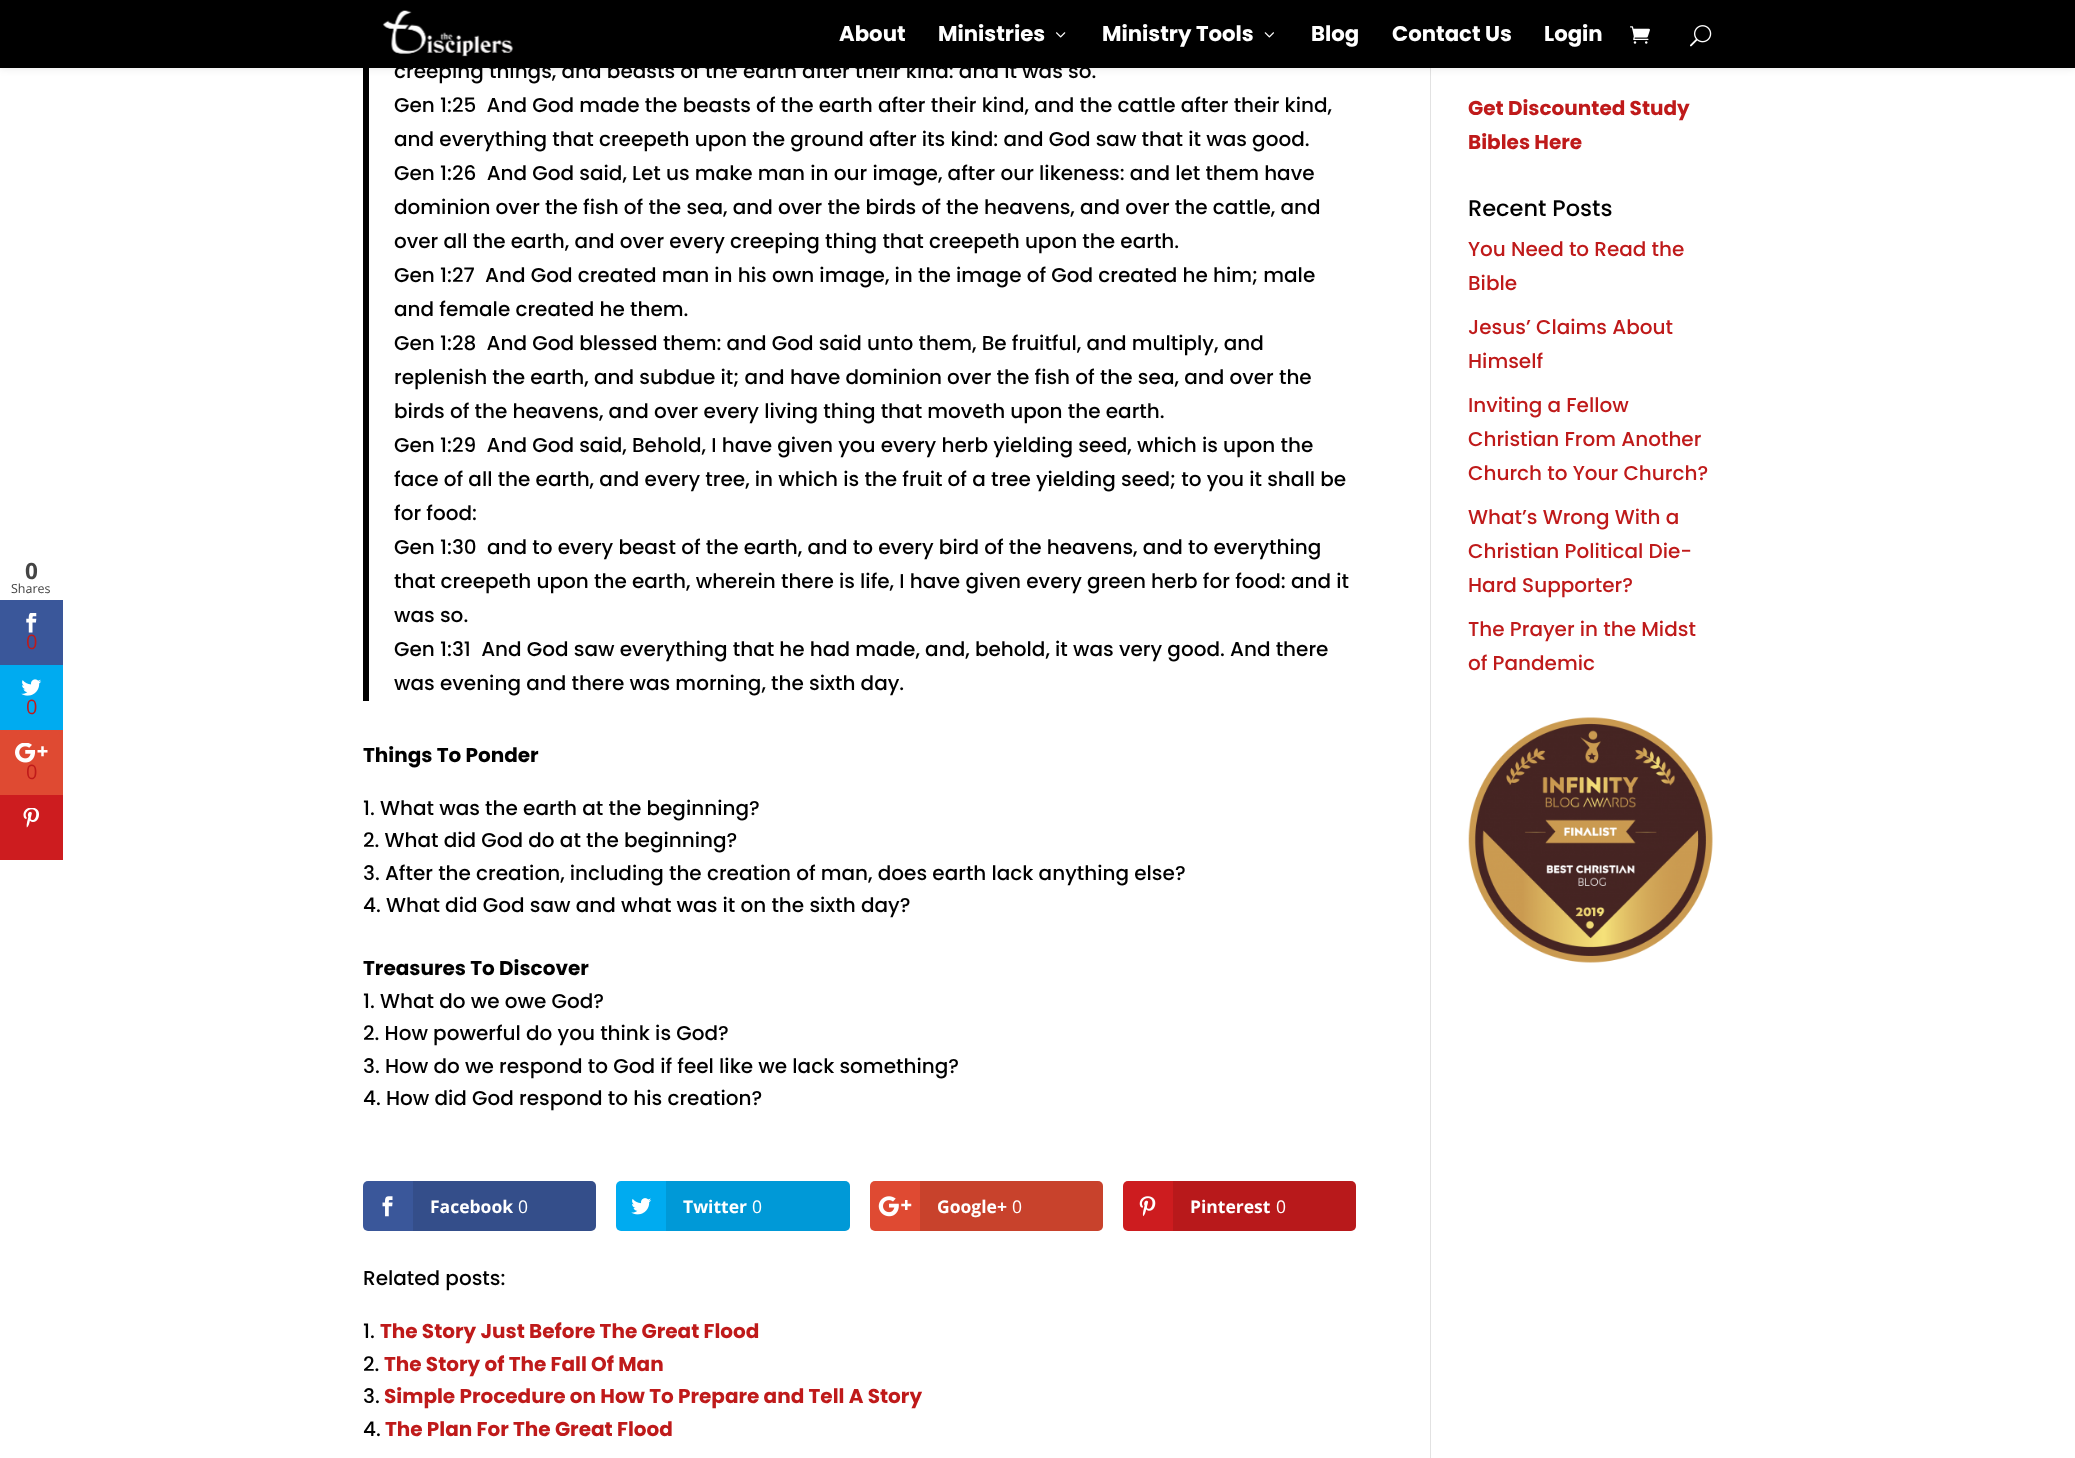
<!DOCTYPE html>
<meta charset="utf-8">
<style>body { margin: 0 } canvas { display: block }</style>
<canvas id="canvas" width="2075" height="1458"></canvas>
<script type="module">
  const canvas = document.getElementById("canvas");
  const g = canvas.getContext("2d");
  g.miterLimit = 4;
  g.fontKerning = "normal";
  function drawText(s, x, y, [font, color]) {
    g.font = font;
    g.fillStyle = color;
    g.fillText(s, x, y);
  }
  function fillBox(x, y, w, h, color) {
    g.fillStyle = color;
    g.fillRect(x, y, w, h);
  }
  function fillRounded(x, y, w, h, r, color) {
    g.fillStyle = color;
    g.beginPath();
    g.roundRect(x, y, w, h, r);
    g.fill();
  }
  async function drawPicture(src, x, y, w, h) {
    const img = new Image();
    img.src = src;
    await img.decode();
    g.drawImage(img, x, y, w, h);
  }

  const s1 = ["bold 22.5px Open Sans", "#444444"];
  const s2 = ["12.5px Open Sans", "#444444"];
  const s3 = ["20px Open Sans", "#BF1A1A"];
  const s4 = ["bold 21.25px Poppins", "#FFFFFF"];
  const s5 = ["500 20px Poppins", "#000000"];
  const s6 = ["bold 20px Poppins", "#000000"];
  const s7 = ["bold 17.5px Open Sans", "#FFFFFF"];
  const s8 = ["17.5px Open Sans", "#FFFFFF"];
  const s9 = ["bold 20px Poppins", "#BF1A1A"];
  const s10 = ["500 22.5px Poppins", "#000000"];
  const s11 = ["500 20px Poppins", "#BF1A1A"];

  fillBox(0, 0, 2075, 1458, "#FFFFFF");
  drawText("0", 25, 579, s1);
  drawText("Shares", 11, 593, s2);
  fillBox(0, 600, 63, 65, "#3A579A");
  await drawPicture("pic1.png", 26, 613, 11, 20);
  drawText("0", 26, 649, s3);
  fillBox(0, 665, 63, 65, "#00ABF0");
  await drawPicture("pic2.png", 21, 679, 21, 17);
  drawText("0", 26, 714, s3);
  fillBox(0, 730, 63, 65, "#DF4A32");
  await drawPicture("pic3.png", 15, 743, 33, 20);
  drawText("0", 26, 779, s3);
  fillBox(0, 795, 63, 65, "#CD1C1F");
  await drawPicture("pic4.png", 23, 808, 16, 20);
  fillBox(363, 68, 6, 633, "#000000");
  fillBox(1430, 68, 1, 1390, "#E2E2E2");
  g.fillStyle = "rgba(0, 0, 0, 0.1)";
  g.filter = "blur(4.5px)";
  g.beginPath();
  g.rect(0, 0, 2075, 68);
  g.fill();
  g.filter = "none";
  fillBox(0, 0, 2075, 68, "#000000");
  await drawPicture("pic5.png", 382, 10, 132, 47);
  drawText("About", 839, 41, s4);
  drawText("Ministries", 938, 41, s4);
  await drawPicture("pic6.png", 1056, 32, 10, 6);
  drawText("Ministry Tools", 1102, 41, s4);
  await drawPicture("pic7.png", 1264, 32, 10, 6);
  drawText("Blog", 1311, 41, s4);
  drawText("Contact Us", 1392, 41, s4);
  drawText("Login", 1544, 41, s4);
  await drawPicture("pic8.png", 1630, 26, 20, 18);
  await drawPicture("pic9.png", 1690, 25, 22, 22);
  drawText("creeping things, and beasts of the earth after their kind: and it was so.", 394, 78, s5);
  drawText("Gen 1:25  And God made the beasts of the earth after their kind, and the cattle after their kind,", 394, 112, s5);
  drawText("and everything that creepeth upon the ground after its kind: and God saw that it was good.", 394, 146, s5);
  drawText("Gen 1:26  And God said, Let us make man in our image, after our likeness: and let them have", 394, 180, s5);
  drawText("dominion over the fish of the sea, and over the birds of the heavens, and over the cattle, and", 394, 214, s5);
  drawText("over all the earth, and over every creeping thing that creepeth upon the earth.", 394, 248, s5);
  drawText("Gen 1:27  And God created man in his own image, in the image of God created he him; male", 394, 282, s5);
  drawText("and female created he them.", 394, 316, s5);
  drawText("Gen 1:28  And God blessed them: and God said unto them, Be fruitful, and multiply, and", 394, 350, s5);
  drawText("replenish the earth, and subdue it; and have dominion over the fish of the sea, and over the", 394, 384, s5);
  drawText("birds of the heavens, and over every living thing that moveth upon the earth.", 394, 418, s5);
  drawText("Gen 1:29  And God said, Behold, I have given you every herb yielding seed, which is upon the", 394, 452, s5);
  drawText("face of all the earth, and every tree, in which is the fruit of a tree yielding seed; to you it shall be", 394, 486, s5);
  drawText("for food:", 394, 520, s5);
  drawText("Gen 1:30  and to every beast of the earth, and to every bird of the heavens, and to everything", 394, 554, s5);
  drawText("that creepeth upon the earth, wherein there is life, I have given every green herb for food: and it", 394, 588, s5);
  drawText("was so.", 394, 622, s5);
  drawText("Gen 1:31  And God saw everything that he had made, and, behold, it was very good. And there", 394, 656, s5);
  drawText("was evening and there was morning, the sixth day.", 394, 690, s5);
  drawText("Things To Ponder", 363, 762, s6);
  drawText("1. What was the earth at the beginning?", 363, 815, s5);
  drawText("2. What did God do at the beginning?", 363, 847, s5);
  drawText("3. After the creation, including the creation of man, does earth lack anything else?", 363, 880, s5);
  drawText("4. What did God saw and what was it on the sixth day?", 363, 912, s5);
  drawText("Treasures To Discover", 363, 975, s6);
  drawText("1. What do we owe God?", 363, 1008, s5);
  drawText("2. How powerful do you think is God?", 363, 1040, s5);
  drawText("3. How do we respond to God if feel like we lack something?", 363, 1073, s5);
  drawText("4. How did God respond to his creation?", 363, 1105, s5);
  fillRounded(363, 1181, 233, 50, 5, "#3A579A");
  await drawPicture("pic10.png", 382, 1196, 11, 21);
  g.fillStyle = "rgba(0, 0, 0, 0.1)";
  g.beginPath();
  g.roundRect(413, 1181, 183, 50, [0, 5, 5, 0]);
  g.fill();
  drawText("Facebook", 430, 1213, s7);
  drawText("0", 518, 1213, s8);
  fillRounded(616, 1181, 234, 50, 5, "#00ABF0");
  await drawPicture("pic11.png", 631, 1198, 21, 17);
  g.fillStyle = "rgba(0, 0, 0, 0.1)";
  g.beginPath();
  g.roundRect(666, 1181, 184, 50, [0, 5, 5, 0]);
  g.fill();
  drawText("Twitter", 683, 1213, s7);
  drawText("0", 752, 1213, s8);
  fillRounded(870, 1181, 233, 50, 5, "#DF4A32");
  await drawPicture("pic12.png", 878, 1196, 34, 21);
  g.fillStyle = "rgba(0, 0, 0, 0.1)";
  g.beginPath();
  g.roundRect(920, 1181, 183, 50, [0, 5, 5, 0]);
  g.fill();
  drawText("Google+", 937, 1213, s7);
  drawText("0", 1012, 1213, s8);
  fillRounded(1123, 1181, 233, 50, 5, "#CD1C1F");
  await drawPicture("pic13.png", 1139, 1196, 17, 21);
  g.fillStyle = "rgba(0, 0, 0, 0.1)";
  g.beginPath();
  g.roundRect(1173, 1181, 183, 50, [0, 5, 5, 0]);
  g.fill();
  drawText("Pinterest", 1190, 1213, s7);
  drawText("0", 1276, 1213, s8);
  drawText("Related posts:", 363, 1285, s5);
  drawText("1.", 363, 1338, s5);
  drawText("The Story Just Before The Great Flood", 380, 1338, s9);
  drawText("2.", 363, 1371, s5);
  drawText("The Story of The Fall Of Man", 384, 1371, s9);
  drawText("3.", 363, 1403, s5);
  drawText("Simple Procedure on How To Prepare and Tell A Story", 384, 1403, s9);
  drawText("4.", 363, 1436, s5);
  drawText("The Plan For The Great Flood", 385, 1436, s9);
  drawText("Get Discounted Study", 1468, 115, s9);
  drawText("Bibles Here", 1468, 149, s9);
  drawText("Recent Posts", 1468, 216, s10);
  drawText("You Need to Read the", 1468, 256, s11);
  drawText("Bible", 1468, 290, s11);
  drawText("Jesus’ Claims About", 1468, 334, s11);
  drawText("Himself", 1468, 368, s11);
  drawText("Inviting a Fellow", 1468, 412, s11);
  drawText("Christian From Another", 1468, 446, s11);
  drawText("Church to Your Church?", 1468, 480, s11);
  drawText("What’s Wrong With a", 1468, 524, s11);
  drawText("Christian Political Die-", 1468, 558, s11);
  drawText("Hard Supporter?", 1468, 592, s11);
  drawText("The Prayer in the Midst", 1468, 636, s11);
  drawText("of Pandemic", 1468, 670, s11);
  await drawPicture("pic14.png", 1468, 717, 245, 246);
</script>
